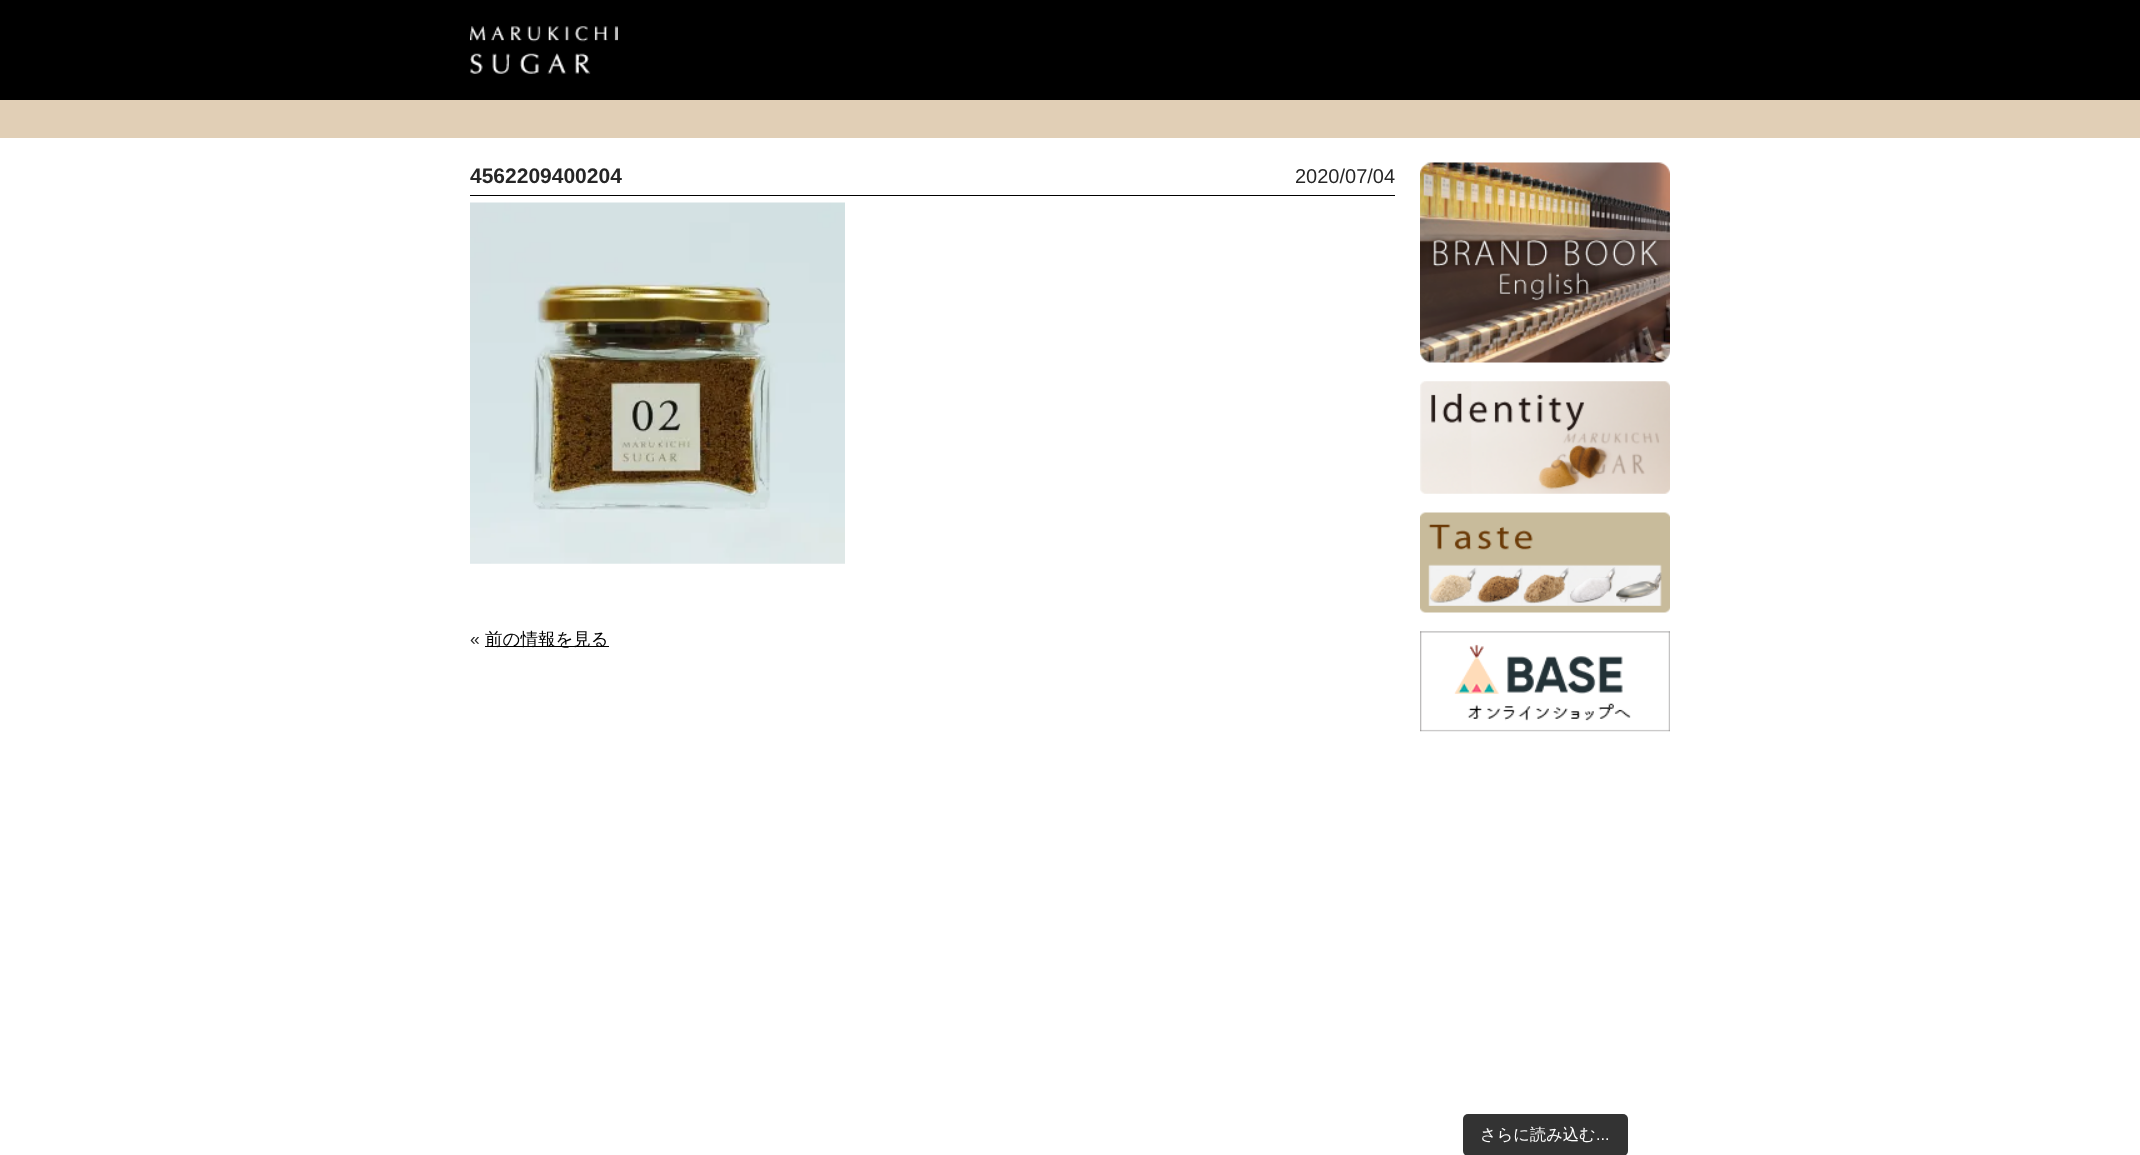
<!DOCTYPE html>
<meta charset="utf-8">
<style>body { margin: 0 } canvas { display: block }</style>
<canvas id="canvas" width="2140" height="1155"></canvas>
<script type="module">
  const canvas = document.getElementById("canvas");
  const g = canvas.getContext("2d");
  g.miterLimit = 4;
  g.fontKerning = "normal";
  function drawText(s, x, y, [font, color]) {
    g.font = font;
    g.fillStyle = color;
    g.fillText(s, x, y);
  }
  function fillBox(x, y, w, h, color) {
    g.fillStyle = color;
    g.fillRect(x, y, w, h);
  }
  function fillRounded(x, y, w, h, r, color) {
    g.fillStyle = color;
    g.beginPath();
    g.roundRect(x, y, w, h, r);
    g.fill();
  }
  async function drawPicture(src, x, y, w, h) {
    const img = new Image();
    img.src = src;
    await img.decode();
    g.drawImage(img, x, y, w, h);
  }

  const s1 = ["bold 21px Liberation Sans", "#262626"];
  const s2 = ["20px Liberation Sans", "#262626"];
  const s3 = ["17.5px Liberation Sans", "#262626"];
  const s4 = ["500 17.5px WenQuanYi Zen Hei", "#000000"];
  const s5 = ["500 16.25px WenQuanYi Zen Hei", "#FFFFFF"];
  const s6 = ["16.25px Liberation Sans", "#FFFFFF"];

  fillBox(0, 0, 2140, 1155, "#FFFFFF");
  fillBox(0, 0, 2140, 100, "#000000");
  await drawPicture("pic1.png", 470, 26, 148, 48);
  fillBox(0, 100, 2140, 38, "#E1CFB6");
  fillBox(470, 195, 925, 1, "#000000");
  drawText("4562209400204", 470, 183, s1);
  drawText("2020/07/04", 1295, 183, s2);
  await drawPicture("pic2.png", 470, 202, 375, 362);
  drawText("«", 470, 645, s3);
  fillBox(485, 646, 124, 1, "#000000");
  drawText("前の情報を見る", 485, 645, s4);
  await drawPicture("pic3.png", 1420, 162, 250, 201);
  await drawPicture("pic4.png", 1420, 381, 250, 113);
  await drawPicture("pic5.png", 1420, 512, 250, 101);
  await drawPicture("pic6.png", 1420, 631, 250, 101);
  fillRounded(1463, 1114, 165, 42, 5, "#333333");
  drawText("さらに読み込む", 1480, 1140, s5);
  drawText("...", 1596, 1140, s6);
</script>
